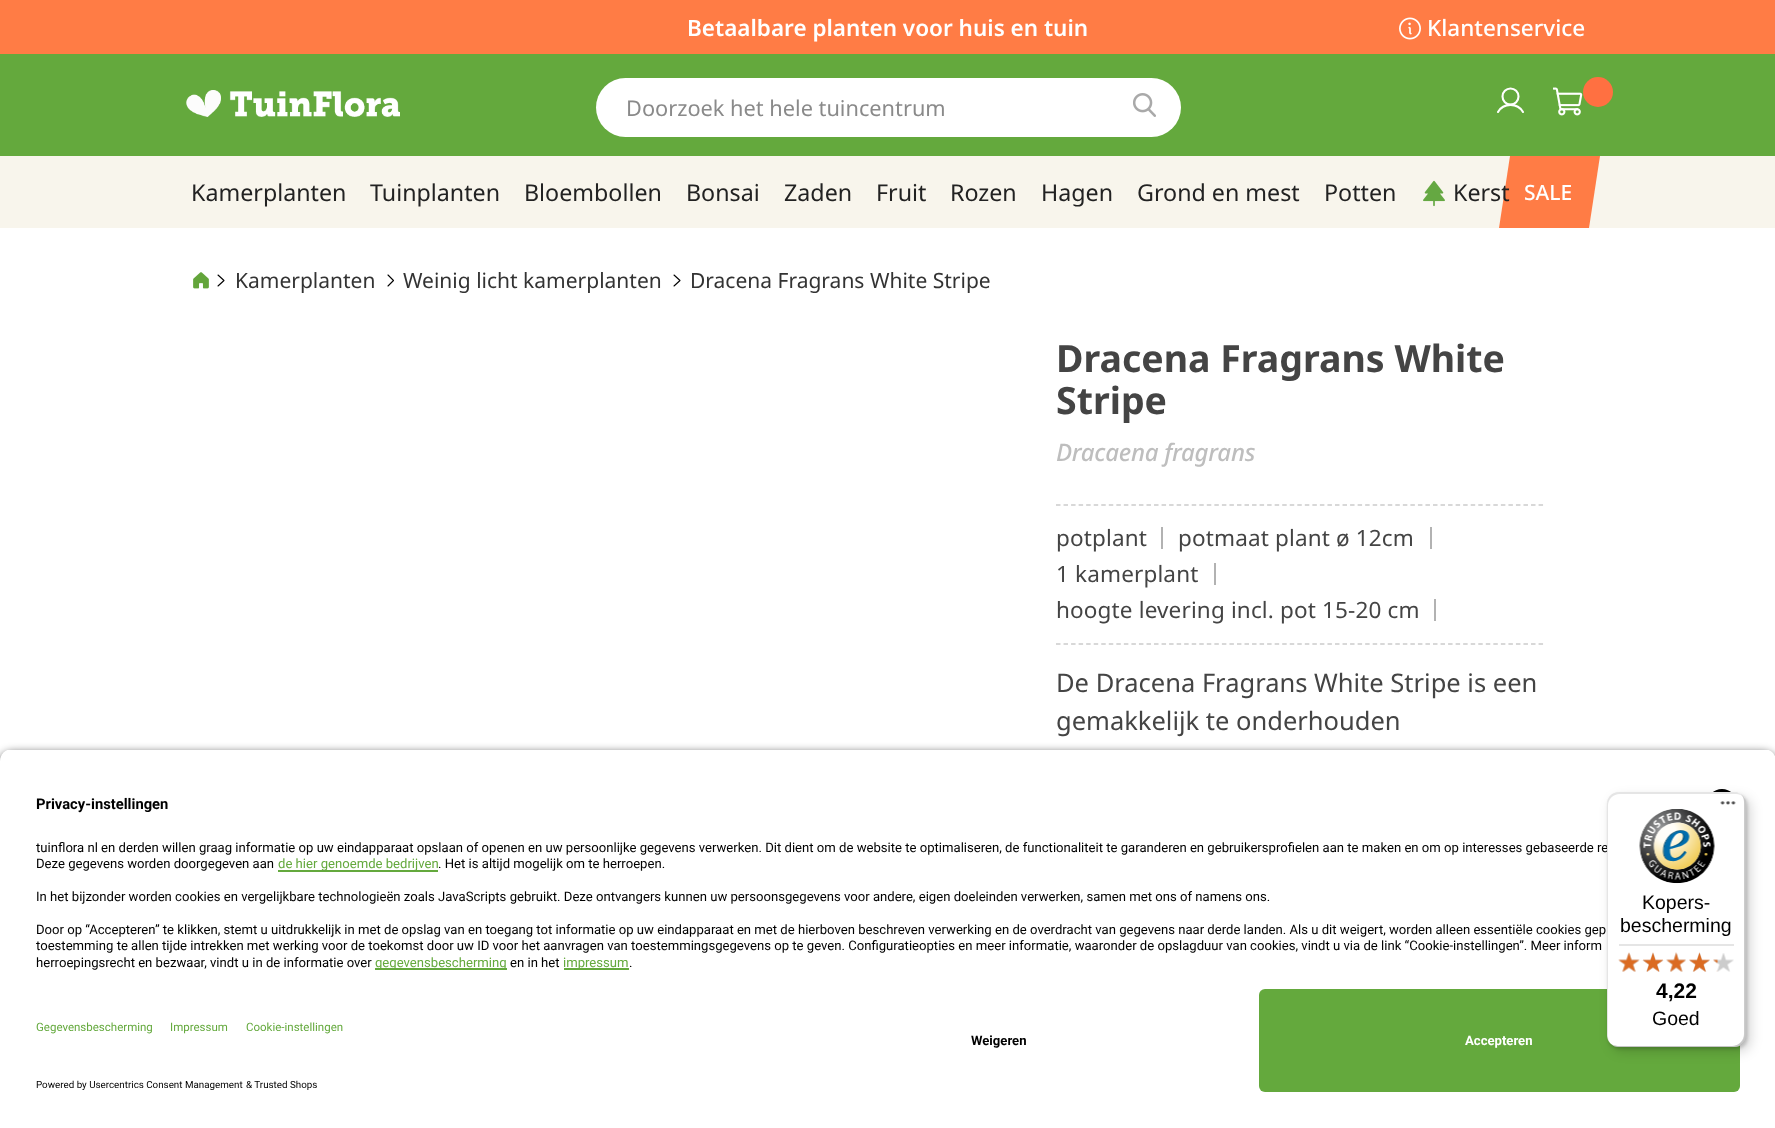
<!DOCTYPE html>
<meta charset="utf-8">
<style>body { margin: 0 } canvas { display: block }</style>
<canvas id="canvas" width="1775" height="1128"></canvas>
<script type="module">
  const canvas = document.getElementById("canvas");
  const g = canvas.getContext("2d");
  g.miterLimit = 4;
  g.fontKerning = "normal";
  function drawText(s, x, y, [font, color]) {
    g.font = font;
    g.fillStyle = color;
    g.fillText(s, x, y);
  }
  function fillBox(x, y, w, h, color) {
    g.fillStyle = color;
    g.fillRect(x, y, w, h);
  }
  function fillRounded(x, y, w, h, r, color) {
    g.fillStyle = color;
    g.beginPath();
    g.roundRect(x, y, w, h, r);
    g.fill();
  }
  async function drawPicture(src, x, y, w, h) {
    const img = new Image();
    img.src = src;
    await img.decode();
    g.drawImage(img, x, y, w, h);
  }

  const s1 = ["600 22.5px Noto Sans", "#FFFFFF"];
  const s2 = ["500 22.5px Noto Sans", "#FFFFFF"];
  const s3 = ["21.75px Noto Sans", "#8A8A8A"];
  const s4 = ["23.25px Noto Sans", "#222222"];
  const s5 = ["500 21px Noto Sans", "#FFFFFF"];
  const s6 = ["21px Noto Sans", "#333333"];
  const s7 = ["bold 37.5px Noto Sans", "#444444"];
  const s8 = ["italic 500 24px Noto Sans", "#BEBEBE"];
  const s9 = ["22.5px Noto Sans", "#444444"];
  const s10 = ["25.5px Noto Sans", "#444444"];
  const s11 = ["bold 14.75px Roboto", "#000000"];
  const s12 = ["13.12px Roboto", "#000000"];
  const s13 = ["13.12px Roboto", "#64A93D"];
  const s14 = ["11.5px Roboto", "#64A93D"];
  const s15 = ["9.8px Roboto", "#000000"];
  const s16 = ["bold 13.12px Roboto", "#000000"];
  const s17 = ["bold 13.12px Roboto", "#FFFFFF"];
  const s18 = ["19.5px Liberation Sans", "#000000"];
  const s19 = ["bold 21px Liberation Sans", "#000000"];

  fillBox(0, 0, 1775, 1128, "#FFFFFF");
  fillBox(0, 0, 1775, 54, "#FF7C45");
  drawText("Betaalbare planten voor huis en tuin", 687, 36, s1);
  await drawPicture("pic1.png", 1399, 17, 22, 23);
  drawText("Klantenservice", 1427, 36, s2);
  fillBox(0, 54, 1775, 102, "#64A93D");
  await drawPicture("pic2.png", 186, 90, 214, 27);
  fillRounded(596, 78, 585, 59, 29.5, "#FFFFFF");
  drawText("Doorzoek het hele tuincentrum", 626, 116, s3);
  await drawPicture("pic3.png", 1133, 93, 23, 24);
  g.beginPath();
  g.arc(1510.5, 96.5, 8, 0, Math.PI * 2);
  g.strokeStyle = "#FFFFFF";
  g.lineWidth = 2.1;
  g.stroke();
  g.beginPath();
  g.moveTo(1498, 112);
  g.bezierCurveTo(1503.5, 102.5, 1517.5, 102.5, 1523, 112);
  g.lineCap = "round";
  g.lineJoin = "round";
  g.stroke();
  await drawPicture("pic4.png", 1553, 87, 30, 29);
  g.fillStyle = "#FF7041";
  g.beginPath();
  g.arc(1598, 92, 15, 0, Math.PI * 2);
  g.fill();
  fillBox(0, 156, 1775, 72, "#F8F5EC");
  drawText("Kamerplanten", 191, 201, s4);
  drawText("Tuinplanten", 370, 201, s4);
  drawText("Bloembollen", 524, 201, s4);
  drawText("Bonsai", 686, 201, s4);
  drawText("Zaden", 784, 201, s4);
  drawText("Fruit", 876, 201, s4);
  drawText("Rozen", 950, 201, s4);
  drawText("Hagen", 1041, 201, s4);
  drawText("Grond en mest", 1137, 201, s4);
  drawText("Potten", 1324, 201, s4);
  await drawPicture("pic5.png", 1423, 180, 22, 27);
  g.fillStyle = "#FF7C45";
  g.beginPath();
  g.moveTo(1510, 156);
  g.lineTo(1600, 156);
  g.lineTo(1589, 228);
  g.lineTo(1499, 228);
  g.closePath();
  g.fill();
  drawText("Kerst", 1453, 201, s4);
  drawText("SALE", 1524, 200, s5);
  await drawPicture("pic6.png", 193, 272, 16, 17);
  g.beginPath();
  g.moveTo(218, 275);
  g.lineTo(224, 280.5);
  g.lineTo(218, 286);
  g.strokeStyle = "#000000";
  g.lineWidth = 1.1;
  g.stroke();
  drawText("Kamerplanten", 235, 288, s6);
  g.beginPath();
  g.moveTo(388, 275);
  g.lineTo(393.5, 280.5);
  g.lineTo(388, 286);
  g.stroke();
  drawText("Weinig licht kamerplanten", 403, 288, s6);
  g.beginPath();
  g.moveTo(674, 275);
  g.lineTo(680, 280.5);
  g.lineTo(674, 286);
  g.stroke();
  drawText("Dracena Fragrans White Stripe", 690, 288, s6);
  drawText("Dracena Fragrans White", 1056, 372, s7);
  drawText("Stripe", 1056, 414, s7);
  g.letterSpacing = "-0.25px";
  drawText("Dracaena fragrans", 1056, 461, s8);
  g.beginPath();
  g.moveTo(1056, 505);
  g.lineTo(1543.5, 505);
  g.strokeStyle = "#CCCCCC";
  g.lineWidth = 1.5;
  g.lineCap = "butt";
  g.lineJoin = "miter";
  g.setLineDash([4.5, 3.04]);
  g.stroke();
  g.beginPath();
  g.moveTo(1056, 644);
  g.lineTo(1543.5, 644);
  g.stroke();
  fillBox(1161, 527, 2, 22, "#B2B2B2");
  g.letterSpacing = "0.15px";
  drawText("potplant", 1056, 546, s9);
  fillBox(1430, 527, 2, 22, "#B2B2B2");
  drawText("potmaat plant ø 12cm", 1178, 546, s9);
  fillBox(1214, 563, 2, 22, "#B2B2B2");
  drawText("1 kamerplant", 1056, 582, s9);
  fillBox(1434, 599, 2, 22, "#B2B2B2");
  drawText("hoogte levering incl. pot 15-20 cm", 1056, 618, s9);
  g.letterSpacing = "0px";
  drawText("De Dracena Fragrans White Stripe is een", 1056, 692, s10);
  drawText("gemakkelijk te onderhouden", 1056, 730, s10);
  g.fillStyle = "rgba(0, 0, 0, 0.8)";
  g.filter = "blur(5px)";
  g.beginPath();
  g.roundRect(0, 753, 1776, 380, 12);
  g.fill();
  g.filter = "none";
  g.save();
  g.beginPath();
  g.moveTo(12, 749);
  g.lineTo(1764, 749);
  g.bezierCurveTo(1770.5, 749, 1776, 754.5, 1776, 761);
  g.lineTo(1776, 977);
  g.lineTo(0, 977);
  g.lineTo(0, 761);
  g.bezierCurveTo(0, 754.5, 5.5, 749, 12, 749);
  g.closePath();
  g.clip();
  fillBox(0, 750, 1775, 227, "#FFFFFF");
  g.restore();
  await drawPicture("pic7.png", 1713, 789, 18, 3);
  drawText("Privacy-instellingen", 36, 809, s11);
  drawText("tuinflora nl en derden willen graag informatie op uw eindapparaat opslaan of openen en uw persoonlijke gegevens verwerken. Dit dient om de website te optimaliseren, de functionaliteit te garanderen en gebruikersprofielen aan te maken en om op interesses gebaseerde re", 36, 852, s12);
  drawText("Deze gegevens worden doorgegeven aan", 36, 868, s12);
  fillBox(278, 870, 160, 2, "#64A93D");
  drawText("de hier genoemde bedrijven", 278, 868, s13);
  drawText(". Het is altijd mogelijk om te herroepen.", 438, 868, s12);
  drawText("In het bijzonder worden cookies en vergelijkbare technologieën zoals JavaScripts gebruikt. Deze ontvangers kunnen uw persoonsgegevens voor andere, eigen doeleinden verwerken, samen met ons of namens ons.", 36, 901, s12);
  drawText("Door op “Accepteren” te klikken, stemt u uitdrukkelijk in met de opslag van en toegang tot informatie op uw eindapparaat en met de hierboven beschreven verwerking en de overdracht van gegevens naar derde landen. Als u dit weigert, worden alleen essentiële cookies gep", 36, 934, s12);
  drawText("toestemming te allen tijde intrekken met werking voor de toekomst door uw ID voor het aanvragen van toestemmingsgegevens op te geven. Configuratieopties en meer informatie, waaronder de opslagduur van cookies, vindt u via de link “Cookie-instellingen”. Meer inform", 36, 950, s12);
  drawText("herroepingsrecht en bezwaar, vindt u in de informatie over", 36, 967, s12);
  fillBox(375, 968, 132, 2, "#64A93D");
  drawText("gegevensbescherming", 375, 967, s13);
  drawText("en in het", 510, 967, s12);
  fillBox(564, 968, 65, 2, "#64A93D");
  drawText("impressum", 563, 967, s13);
  drawText(".", 629, 967, s12);
  fillBox(0, 977, 1775, 151, "#FFFFFF");
  drawText("Gegevensbescherming", 36, 1031, s14);
  drawText("Impressum", 170, 1031, s14);
  drawText("Cookie-instellingen", 246, 1031, s14);
  drawText("Powered by Usercentrics Consent Management", 36, 1088, s15);
  drawText("& Trusted Shops", 246, 1088, s15);
  drawText("Weigeren", 971, 1045, s16);
  fillRounded(1259, 989, 481, 103, 6, "#64A93D");
  drawText("Accepteren", 1465, 1045, s17);
  g.fillStyle = "rgba(0, 0, 0, 0.15)";
  g.filter = "blur(6px)";
  g.beginPath();
  g.roundRect(1611, 797, 140, 255, 12);
  g.fill();
  g.filter = "none";
  g.filter = "blur(1.5px)";
  g.beginPath();
  g.roundRect(1608, 794, 140, 255, 12);
  g.fill();
  g.filter = "none";
  fillRounded(1607, 792, 139, 255, 12, "#FFFFFF");
  g.fillStyle = "rgba(0, 0, 0, 0.1)";
  g.beginPath();
  g.moveTo(1620, 794);
  g.lineTo(1736, 794);
  g.bezierCurveTo(1739, 794, 1741, 795, 1744, 797);
  g.bezierCurveTo(1741, 794, 1738, 792, 1734, 792);
  g.lineTo(1619, 792);
  g.bezierCurveTo(1612, 792, 1607, 797, 1607, 804);
  g.lineTo(1607, 1035);
  g.bezierCurveTo(1607, 1038, 1608, 1041, 1610, 1043);
  g.bezierCurveTo(1609, 1041, 1608, 1039, 1608, 1036);
  g.lineTo(1608, 806);
  g.bezierCurveTo(1608, 799, 1613, 794, 1620, 794);
  g.closePath();
  g.fill();
  g.fillStyle = "rgba(0, 0, 0, 0.2)";
  g.beginPath();
  g.moveTo(1613, 1045);
  g.bezierCurveTo(1614, 1046, 1617, 1047, 1619, 1047);
  g.lineTo(1734, 1047);
  g.bezierCurveTo(1741, 1047, 1746, 1042, 1746, 1035);
  g.lineTo(1746, 804);
  g.bezierCurveTo(1746, 800, 1744, 797, 1741, 794);
  g.bezierCurveTo(1743, 797, 1744, 799, 1744, 802);
  g.lineTo(1744, 1034);
  g.bezierCurveTo(1744, 1040, 1739, 1046, 1732, 1046);
  g.lineTo(1617, 1046);
  g.closePath();
  g.fill();
  g.fillStyle = "rgba(50, 50, 50, 0.2)";
  g.beginPath();
  g.moveTo(1611, 1044);
  g.bezierCurveTo(1613, 1046, 1616, 1047, 1619, 1047);
  g.lineTo(1734, 1047);
  g.bezierCurveTo(1741, 1047, 1746, 1042, 1746, 1035);
  g.lineTo(1746, 804);
  g.bezierCurveTo(1746, 801, 1745, 798, 1743, 796);
  g.bezierCurveTo(1744, 798, 1745, 800, 1745, 803);
  g.lineTo(1745, 1034);
  g.bezierCurveTo(1745, 1041, 1740, 1046, 1733, 1046);
  g.lineTo(1618, 1046);
  g.bezierCurveTo(1615, 1046, 1613, 1045, 1611, 1044);
  g.closePath();
  g.fill();
  g.fillStyle = "rgba(255, 255, 255, 0.3)";
  g.beginPath();
  g.moveTo(1611, 1044);
  g.bezierCurveTo(1613, 1046, 1616, 1047, 1619, 1047);
  g.lineTo(1734, 1047);
  g.bezierCurveTo(1741, 1047, 1746, 1042, 1746, 1035);
  g.lineTo(1746, 804);
  g.bezierCurveTo(1746, 800, 1744, 797, 1742, 795);
  g.bezierCurveTo(1744, 797, 1745, 800, 1745, 803);
  g.lineTo(1745, 1034);
  g.bezierCurveTo(1745, 1041, 1740, 1046, 1733, 1046);
  g.lineTo(1618, 1046);
  g.bezierCurveTo(1615, 1046, 1613, 1045, 1611, 1044);
  g.closePath();
  g.fill();
  await drawPicture("pic8.png", 1720, 801, 16, 4);
  await drawPicture("pic9.png", 1639, 809, 76, 75);
  drawText("Kopers-", 1642, 909, s18);
  drawText("bescherming", 1620, 932, s18);
  fillBox(1619, 944, 115, 2, "#E5E5E5");
  await drawPicture("pic15.png", 1619, 953, 20, 19);
  await drawPicture("pic10.png", 1618, 952, 22, 20);
  await drawPicture("pic16.png", 1642, 953, 22, 19);
  await drawPicture("pic11.png", 1643, 952, 20, 20);
  await drawPicture("pic17.png", 1666, 952, 20, 20);
  await drawPicture("pic12.png", 1666, 952, 20, 20);
  await drawPicture("pic18.png", 1689, 953, 21, 19);
  await drawPicture("pic13.png", 1689, 952, 21, 20);
  await drawPicture("pic19.png", 1713, 953, 21, 19);
  await drawPicture("pic14.png", 1713, 959, 5, 13);
  drawText("4,22", 1656, 998, s19);
  drawText("Goed", 1652, 1025, s18);
</script>
